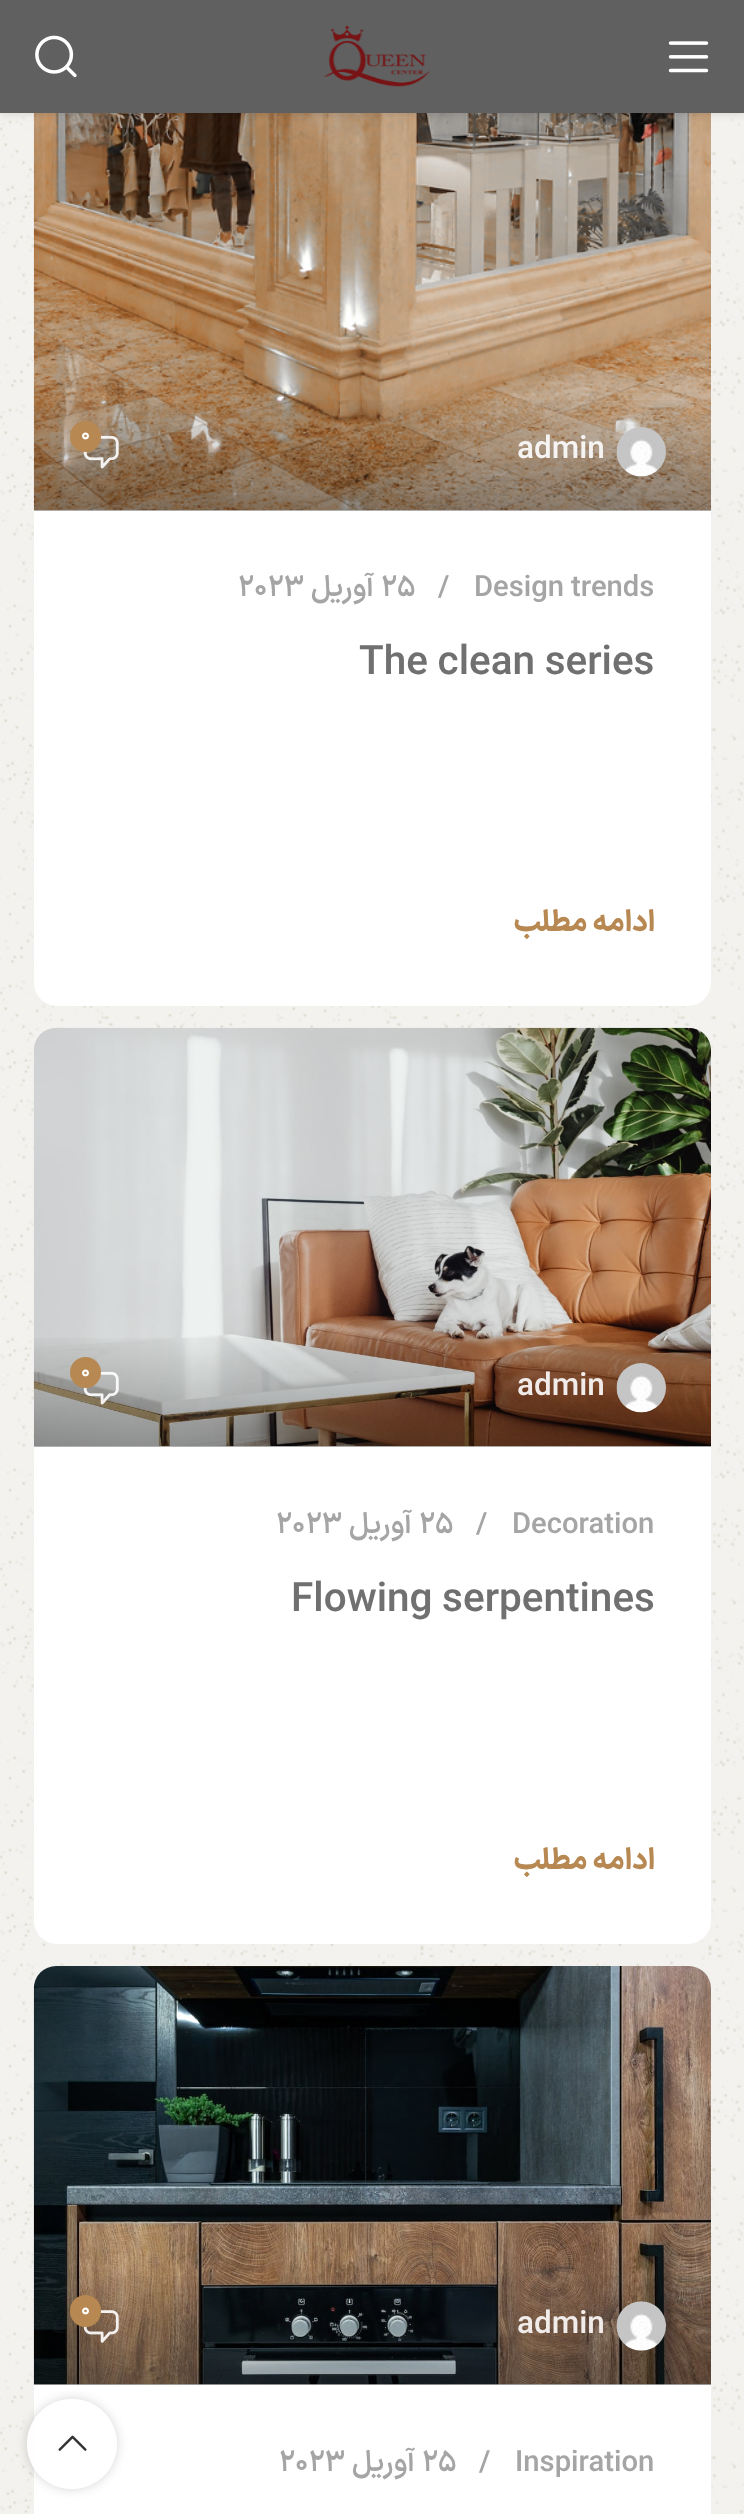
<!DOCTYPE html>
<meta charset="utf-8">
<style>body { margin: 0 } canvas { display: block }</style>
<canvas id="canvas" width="744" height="2514"></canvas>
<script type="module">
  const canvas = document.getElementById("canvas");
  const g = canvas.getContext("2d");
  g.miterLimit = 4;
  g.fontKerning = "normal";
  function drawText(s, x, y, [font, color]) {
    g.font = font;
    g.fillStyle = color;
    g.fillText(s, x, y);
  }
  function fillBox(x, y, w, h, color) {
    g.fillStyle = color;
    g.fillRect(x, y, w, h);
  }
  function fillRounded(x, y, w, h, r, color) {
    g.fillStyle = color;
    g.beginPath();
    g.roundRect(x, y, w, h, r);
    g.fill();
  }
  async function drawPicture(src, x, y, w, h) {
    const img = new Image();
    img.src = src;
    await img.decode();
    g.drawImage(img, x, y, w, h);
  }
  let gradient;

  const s1 = ["600 20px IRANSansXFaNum", "#FFFFFF"];
  const s2 = ["600 31.5px IRANSansXFaNum", "#F6F4F2"];
  const s3 = ["600 29.25px IRANSansXFaNum", "#A5A5A5"];
  const s4 = ["600 40.5px IRANSansXFaNum", "#707070"];
  const s5 = ["800 29.25px IRANSansXFaNum", "#B78851"];
  const s6 = ["600 31.5px IRANSansXFaNum", "#F1ECE9"];

  fillBox(0, 0, 744, 2514, "#FFFFFF");
  await drawPicture("pic5.png", 0, 113, 744, 2401);
  fillRounded(34, 1967, 677, 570, 23, "#FFFFFF");
  await drawPicture("pic12.png", 33, 1966, 678, 419);
  gradient = g.createLinearGradient(372, 2268, 372, 2385);
  gradient.addColorStop(0, "rgba(0, 0, 0, 0)");
  gradient.addColorStop(1, "rgba(0, 0, 0, 0.3)");
  g.fillStyle = gradient;
  g.fillRect(34, 2276, 677, 109);
  g.save();
  g.beginPath();
  g.moveTo(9, 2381);
  g.lineTo(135, 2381);
  g.lineTo(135, 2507);
  g.lineTo(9, 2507);
  g.closePath();
  g.moveTo(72, 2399);
  g.bezierCurveTo(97, 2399, 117, 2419, 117, 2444);
  g.bezierCurveTo(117, 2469, 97, 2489, 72, 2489);
  g.bezierCurveTo(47, 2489, 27, 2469, 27, 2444);
  g.bezierCurveTo(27, 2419, 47, 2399, 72, 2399);
  g.closePath();
  g.clip("evenodd");
  g.fillStyle = "rgba(0, 0, 0, 0.17)";
  g.filter = "blur(5.5px)";
  g.beginPath();
  g.roundRect(27, 2399, 90, 90, 45);
  g.fill();
  g.filter = "none";
  g.restore();
  g.fillStyle = "rgba(255, 255, 255, 0.9)";
  g.beginPath();
  g.arc(72, 2444, 45, 0, Math.PI * 2);
  g.fill();
  await drawPicture("pic1.png", 58, 2435, 29, 16);
  fillRounded(34, -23, 677, 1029, 23, "#FFFFFF");
  await drawPicture("pic6.png", 33, 113, 678, 398);
  g.fillStyle = "rgba(0, 0, 0, 0.1)";
  g.filter = "blur(3.5px)";
  g.beginPath();
  g.rect(0, 2, 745, 113);
  g.fill();
  g.filter = "none";
  fillBox(0, 0, 744, 113, "#606060");
  await drawPicture("pic2.png", 35, 35, 42, 43);
  await drawPicture("pic3.png", 324, 25, 106, 62);
  await drawPicture("pic4.png", 668, 41, 41, 32);
  gradient = g.createLinearGradient(372, 391, 372, 511);
  gradient.addColorStop(0, "rgba(0, 0, 0, 0)");
  gradient.addColorStop(1, "rgba(0, 0, 0, 0.3)");
  g.fillStyle = gradient;
  g.fillRect(34, 400, 677, 111);
  await drawPicture("pic7.png", 83, 435, 36, 34);
  g.fillStyle = "#B78851";
  g.beginPath();
  g.arc(85.5, 436.5, 15.5, 0, Math.PI * 2);
  g.fill();
  drawText("0", 81, 440, s1);
  drawText("admin", 517, 458, s2);
  await drawPicture("pic8.png", 616, 427, 50, 50);
  drawText("2023", 238, 596, s3);
  g.direction = "rtl";
  drawText("آوریل", 374, 596, s3);
  g.direction = "ltr";
  drawText("25", 381, 596, s3);
  drawText("/", 438, 596, s3);
  drawText("Design trends", 474, 596, s3);
  drawText("The clean series", 359, 674, s4);
  g.direction = "rtl";
  drawText("ادامه مطلب", 655, 931, s5);
  fillRounded(34, 1028, 677, 916, 23, "#FFFFFF");
  await drawPicture("pic9.png", 33, 1027, 678, 420);
  gradient = g.createLinearGradient(372, 1330, 372, 1447);
  gradient.addColorStop(0, "rgba(0, 0, 0, 0)");
  gradient.addColorStop(1, "rgba(0, 0, 0, 0.3)");
  g.fillStyle = gradient;
  g.fillRect(34, 1338, 677, 109);
  await drawPicture("pic10.png", 83, 1371, 36, 34);
  g.fillStyle = "#B78851";
  g.beginPath();
  g.arc(85.5, 1372.5, 15.5, 0, Math.PI * 2);
  g.fill();
  g.direction = "ltr";
  drawText("0", 81, 1377, s1);
  drawText("admin", 517, 1395, s6);
  await drawPicture("pic11.png", 616, 1363, 50, 50);
  drawText("2023", 276, 1533, s3);
  g.direction = "rtl";
  drawText("آوریل", 412, 1533, s3);
  g.direction = "ltr";
  drawText("25", 419, 1533, s3);
  drawText("/", 476, 1533, s3);
  drawText("Decoration", 512, 1533, s3);
  drawText("Flowing serpentines", 291, 1611, s4);
  g.direction = "rtl";
  drawText("ادامه مطلب", 655, 1869, s5);
  await drawPicture("pic13.png", 83, 2310, 36, 33);
  fillRounded(70, 2295, 31, 32, 15.5, "#B78851");
  g.direction = "ltr";
  drawText("0", 81, 2315, s1);
  drawText("admin", 517, 2333, s6);
  await drawPicture("pic14.png", 616, 2301, 50, 50);
  drawText("2023", 279, 2471, s3);
  g.direction = "rtl";
  drawText("آوریل", 415, 2471, s3);
  g.direction = "ltr";
  drawText("25", 422, 2471, s3);
  drawText("/", 479, 2471, s3);
  drawText("Inspiration", 515, 2471, s3);
</script>
